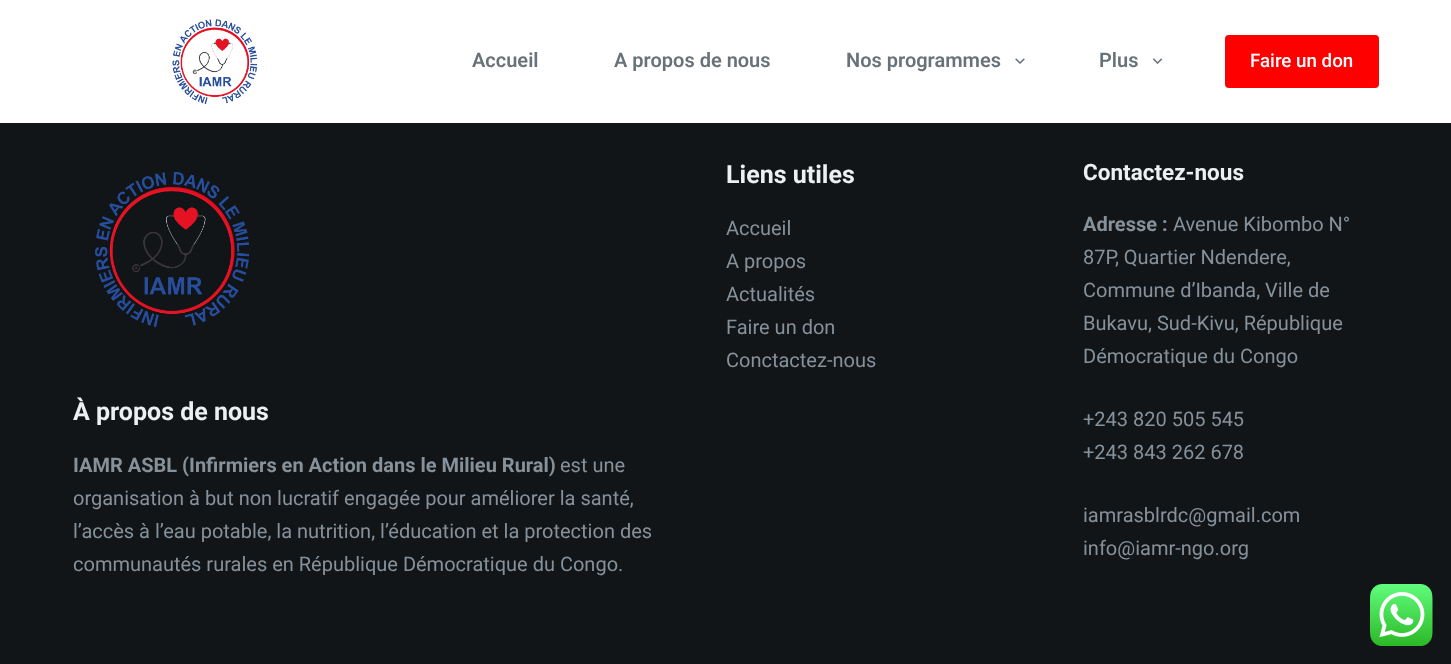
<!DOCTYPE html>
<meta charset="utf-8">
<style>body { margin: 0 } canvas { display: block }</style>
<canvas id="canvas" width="1451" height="664"></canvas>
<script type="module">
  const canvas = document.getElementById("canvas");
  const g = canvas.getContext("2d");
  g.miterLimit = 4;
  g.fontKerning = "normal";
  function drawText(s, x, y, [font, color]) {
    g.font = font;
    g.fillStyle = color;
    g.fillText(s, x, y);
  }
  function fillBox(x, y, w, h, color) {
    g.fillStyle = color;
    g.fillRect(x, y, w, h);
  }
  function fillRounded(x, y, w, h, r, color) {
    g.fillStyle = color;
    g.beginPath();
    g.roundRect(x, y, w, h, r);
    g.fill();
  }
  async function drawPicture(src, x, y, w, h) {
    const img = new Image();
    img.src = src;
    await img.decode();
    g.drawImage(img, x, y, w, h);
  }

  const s1 = ["600 20px Roboto", "#687279"];
  const s2 = ["500 18.75px Roboto", "#FFFFFF"];
  const s3 = ["bold 25px Roboto", "#EDEFF2"];
  const s4 = ["20px Roboto", "#86919A"];
  const s5 = ["bold 22.5px Roboto", "#EDEFF2"];
  const s6 = ["bold 20px Roboto", "#86919A"];

  fillBox(0, 0, 1451, 664, "#111518");
  fillBox(0, 0, 1451, 123, "#FFFFFF");
  await drawPicture("pic1.png", 172, 19, 86, 86);
  drawText("Accueil", 472, 67, s1);
  drawText("A propos de nous", 614, 67, s1);
  drawText("Nos programmes", 846, 67, s1);
  await drawPicture("pic2.png", 1015, 58, 10, 6);
  drawText("Plus", 1099, 67, s1);
  await drawPicture("pic3.png", 1153, 58, 10, 6);
  fillRounded(1225, 35, 154, 53, 4, "#FF0000");
  drawText("Faire un don", 1250, 67, s2);
  drawText("Liens utiles", 726, 183, s3);
  drawText("Accueil", 726, 235, s4);
  drawText("A propos", 726, 268, s4);
  drawText("Actualités", 726, 301, s4);
  drawText("Faire un don", 726, 334, s4);
  drawText("Conctactez-nous", 726, 367, s4);
  drawText("Contactez-nous", 1083, 180, s5);
  drawText("Adresse :", 1083, 231, s6);
  drawText("Avenue Kibombo N°", 1173, 231, s4);
  drawText("87P, Quartier Ndendere,", 1083, 264, s4);
  drawText("Commune d’Ibanda, Ville de", 1083, 297, s4);
  drawText("Bukavu, Sud-Kivu, République", 1083, 330, s4);
  drawText("Démocratique du Congo", 1083, 363, s4);
  drawText("+243 820 505 545", 1083, 426, s4);
  drawText("+243 843 262 678", 1083, 459, s4);
  drawText("iamrasblrdc@gmail.com", 1083, 522, s4);
  drawText("info@iamr-ngo.org", 1083, 555, s4);
  await drawPicture("pic4.png", 95, 172, 155, 156);
  drawText("À propos de nous", 73, 420, s3);
  drawText("IAMR ASBL (Infirmiers en Action dans le Milieu Rural)", 73, 472, s6);
  drawText("est une", 560, 472, s4);
  drawText("organisation à but non lucratif engagée pour améliorer la santé,", 73, 505, s4);
  drawText("l’accès à l’eau potable, la nutrition, l’éducation et la protection des", 73, 538, s4);
  drawText("communautés rurales en République Démocratique du Congo.", 73, 571, s4);
  await drawPicture("pic5.png", 1370, 584, 63, 62);
</script>
